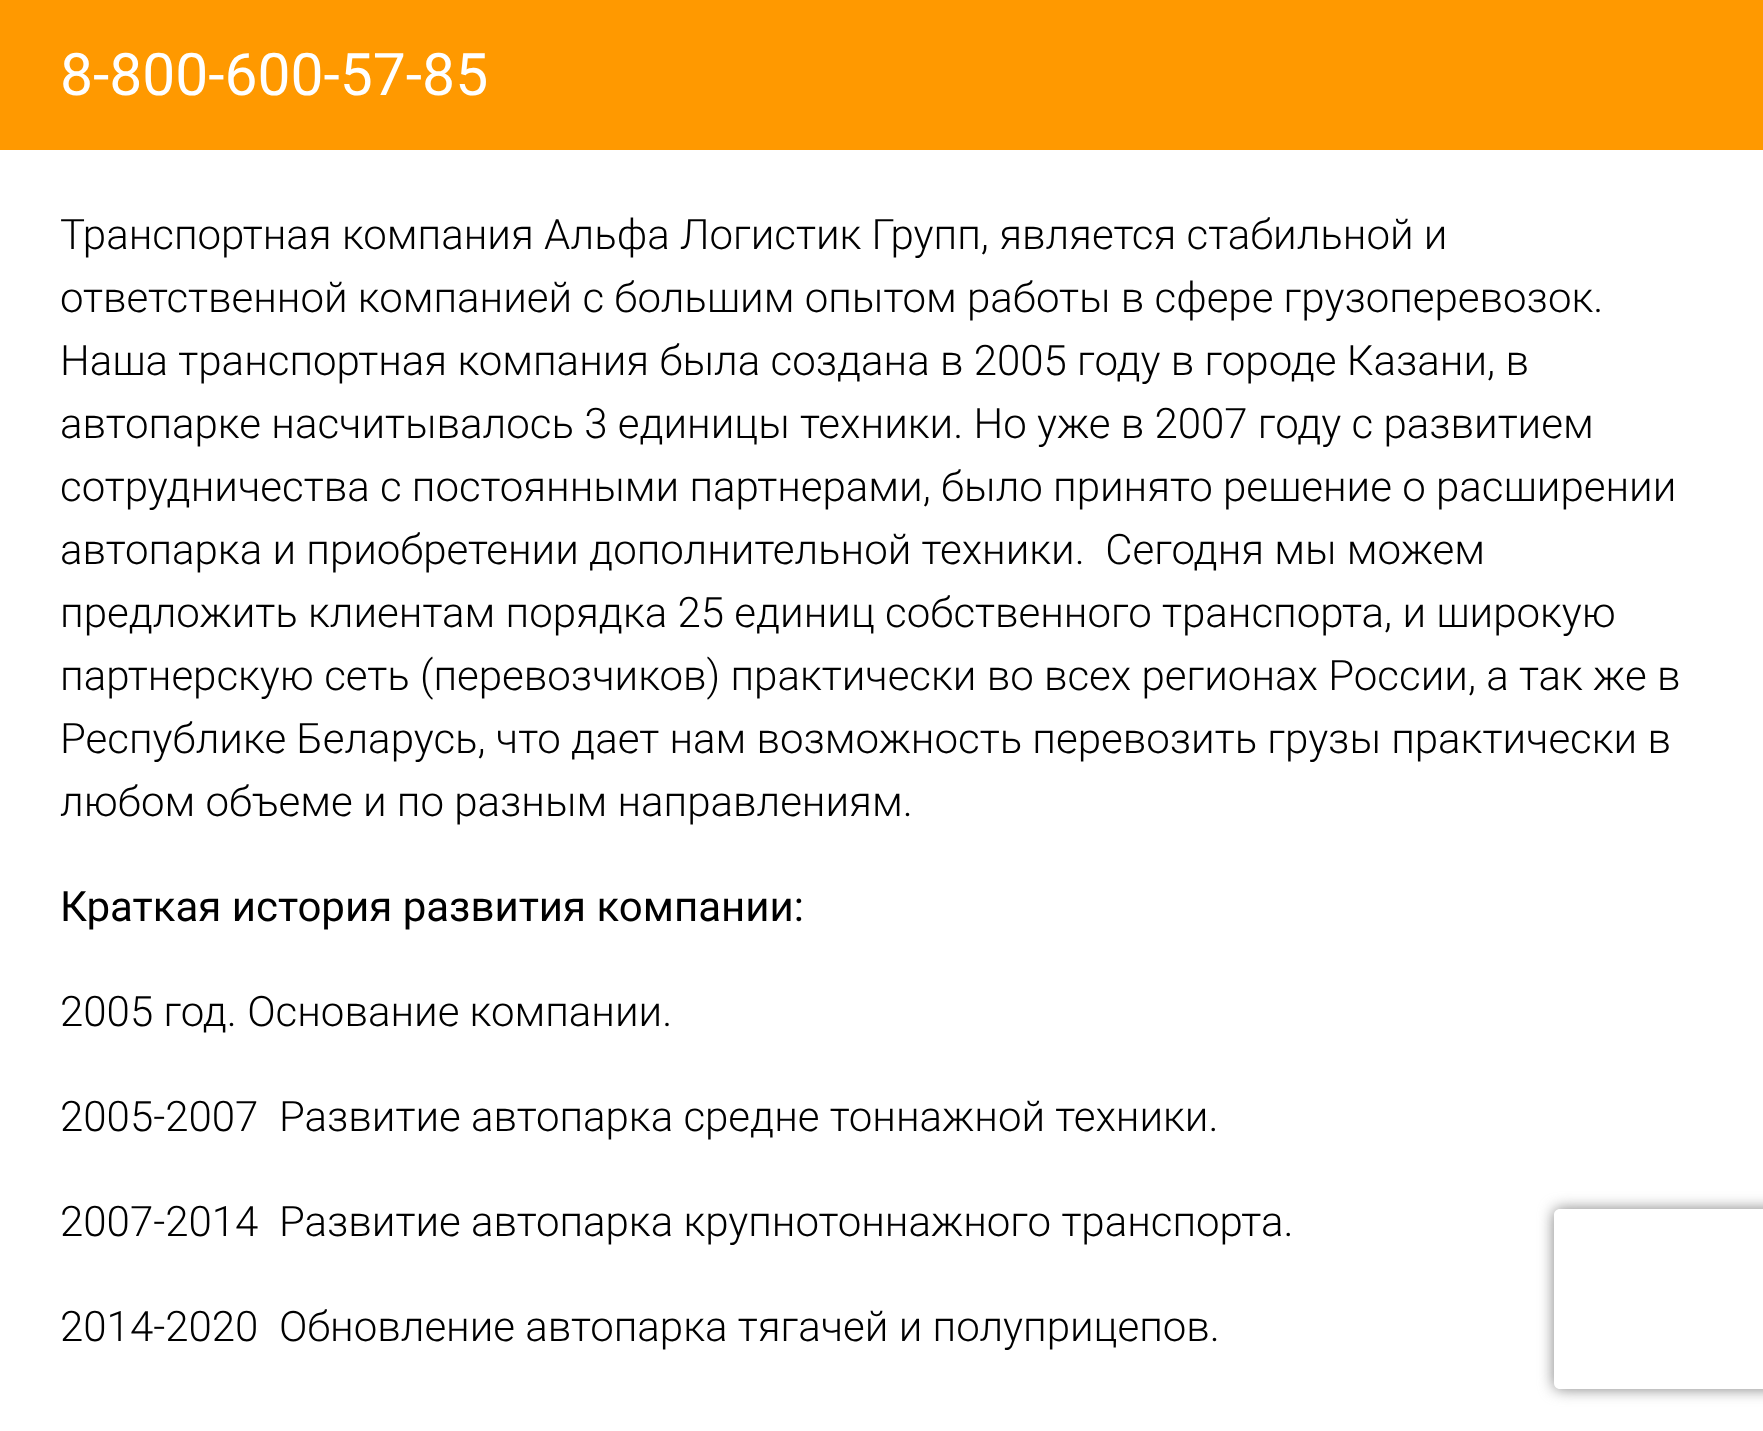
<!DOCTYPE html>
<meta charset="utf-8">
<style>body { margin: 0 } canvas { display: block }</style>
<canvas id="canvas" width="1763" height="1431"></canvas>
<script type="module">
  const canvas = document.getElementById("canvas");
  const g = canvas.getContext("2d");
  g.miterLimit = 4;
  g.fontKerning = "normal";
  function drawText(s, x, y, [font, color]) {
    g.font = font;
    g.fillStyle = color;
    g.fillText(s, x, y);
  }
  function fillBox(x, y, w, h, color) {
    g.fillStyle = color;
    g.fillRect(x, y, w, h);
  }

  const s1 = ["58.75px Roboto", "#FFFFFF"];
  const s2 = ["300 42px Roboto", "#000000"];
  const s3 = ["42px Roboto", "#000000"];

  fillBox(0, 0, 1763, 1431, "#FFFFFF");
  fillBox(0, 0, 1763, 150, "#FF9900");
  drawText("8-800-600-57-85", 60, 95, s1);
  drawText("Транспортная компания Альфа Логистик Групп, является стабильной и", 60, 249, s2);
  drawText("ответственной компанией с большим опытом работы в сфере грузоперевозок.", 60, 312, s2);
  drawText("Наша транспортная компания была создана в 2005 году в городе Казани, в", 60, 375, s2);
  drawText("автопарке насчитывалось 3 единицы техники. Но уже в 2007 году с развитием", 60, 438, s2);
  drawText("сотрудничества с постоянными партнерами, было принято решение о расширении", 60, 501, s2);
  drawText("автопарка и приобретении дополнительной техники.  Сегодня мы можем", 60, 564, s2);
  drawText("предложить клиентам порядка 25 единиц собственного транспорта, и широкую", 60, 627, s2);
  drawText("партнерскую сеть (перевозчиков) практически во всех регионах России, а так же в", 60, 690, s2);
  drawText("Республике Беларусь, что дает нам возможность перевозить грузы практически в", 60, 753, s2);
  drawText("любом объеме и по разным направлениям.", 60, 816, s2);
  drawText("Краткая история развития компании:", 60, 921, s3);
  drawText("2005 год. Основание компании.", 60, 1026, s2);
  drawText("2005-2007  Развитие автопарка средне тоннажной техники.", 60, 1131, s2);
  drawText("2007-2014  Развитие автопарка крупнотоннажного транспорта.", 60, 1236, s2);
  drawText("2014-2020  Обновление автопарка тягачей и полуприцепов.", 60, 1341, s2);
  g.save();
  g.beginPath();
  g.moveTo(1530, 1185);
  g.lineTo(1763, 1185);
  g.lineTo(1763, 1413);
  g.lineTo(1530, 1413);
  g.closePath();
  g.moveTo(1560, 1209);
  g.lineTo(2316, 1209);
  g.bezierCurveTo(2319.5, 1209, 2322, 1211.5, 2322, 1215);
  g.lineTo(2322, 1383);
  g.bezierCurveTo(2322, 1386.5, 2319.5, 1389, 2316, 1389);
  g.lineTo(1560, 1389);
  g.bezierCurveTo(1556.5, 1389, 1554, 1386.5, 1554, 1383);
  g.lineTo(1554, 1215);
  g.bezierCurveTo(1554, 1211.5, 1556.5, 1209, 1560, 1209);
  g.closePath();
  g.clip("evenodd");
  g.fillStyle = "#808080";
  g.filter = "blur(7.5px)";
  g.beginPath();
  g.roundRect(1554, 1209, 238, 180, 6);
  g.fill();
  g.filter = "none";
  g.restore();
</script>
